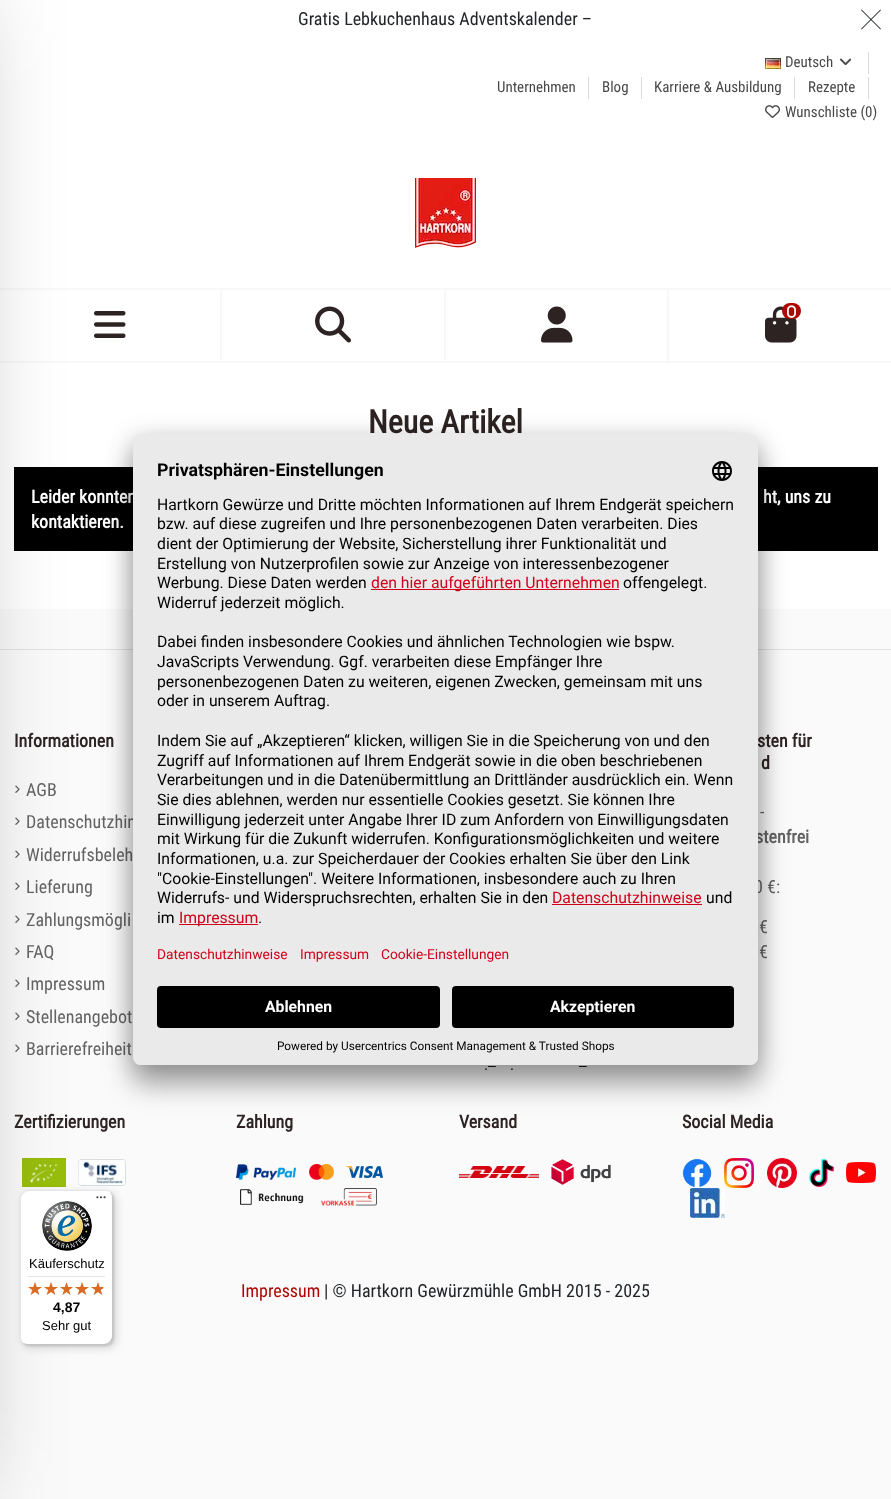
<!DOCTYPE html>
<meta charset="utf-8">
<style>body { margin: 0 } canvas { display: block }</style>
<canvas id="canvas" width="891" height="1499"></canvas>
<script type="module">
  const canvas = document.getElementById("canvas");
  const g = canvas.getContext("2d");
  g.miterLimit = 4;
  g.fontKerning = "normal";
  function drawText(s, x, y, [font, color]) {
    g.font = font;
    g.fillStyle = color;
    g.fillText(s, x, y);
  }
  function fillBox(x, y, w, h, color) {
    g.fillStyle = color;
    g.fillRect(x, y, w, h);
  }
  function fillRounded(x, y, w, h, r, color) {
    g.fillStyle = color;
    g.beginPath();
    g.roundRect(x, y, w, h, r);
    g.fill();
  }
  async function drawPicture(src, x, y, w, h) {
    const img = new Image();
    img.src = src;
    await img.decode();
    g.drawImage(img, x, y, w, h);
  }

  const s1 = ["18px Roboto Condensed", "#212529"];
  const s2 = ["15px Roboto Condensed", "#484848"];
  const s3 = ["bold 32px Roboto Condensed", "#2E2323"];
  const s4 = ["bold 18px Roboto Condensed", "#FFFFFF"];
  const s5 = ["bold 18px Roboto Condensed", "#2E2323"];
  const s6 = ["18px Roboto Condensed", "#636363"];
  const s7 = ["bold 18px Roboto Condensed", "#636363"];
  const s8 = ["14px Liberation Sans", "#000000"];
  const s9 = ["18px Roboto Condensed", "#AD0700"];
  const s10 = ["bold 17.75px Roboto", "#000000"];
  const s11 = ["15.75px Roboto", "#000000"];
  const s12 = ["15.75px Roboto", "#D0021B"];
  const s13 = ["13.75px Roboto", "#D0021B"];
  const s14 = ["bold 15.75px Roboto", "#FFFFFF"];
  const s15 = ["11.8px Roboto", "#000000"];
  const s16 = ["13px Liberation Sans", "#000000"];
  const s17 = ["bold 14px Liberation Sans", "#000000"];

  fillBox(0, 0, 891, 1499, "#FAFAFA");
  fillBox(0, 0, 891, 609, "#FFFFFF");
  g.fillStyle = "#F8F8F8";
  g.beginPath();
  g.moveTo(-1, 288);
  g.lineTo(222, 288);
  g.lineTo(220, 290);
  g.lineTo(-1, 290);
  g.closePath();
  g.fill();
  g.fillStyle = "rgba(232, 232, 232, 0.29)";
  g.beginPath();
  g.moveTo(222, 288);
  g.lineTo(222, 363);
  g.lineTo(220, 361);
  g.lineTo(220, 290);
  g.closePath();
  g.fill();
  g.beginPath();
  g.moveTo(222, 363);
  g.lineTo(-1, 363);
  g.lineTo(-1, 361);
  g.lineTo(220, 361);
  g.closePath();
  g.fill();
  await drawPicture("pic1.png", 94, 311, 32, 27);
  fillBox(14, 467, 864, 84, "#000000");
  fillBox(0, 649, 891, 1, "#E2E2E2");
  await drawPicture("pic11.png", 15, 785, 5, 8);
  await drawPicture("pic11.png", 15, 817, 5, 8);
  await drawPicture("pic11.png", 15, 850, 5, 8);
  await drawPicture("pic11.png", 15, 882, 5, 8);
  await drawPicture("pic11.png", 15, 915, 5, 8);
  await drawPicture("pic11.png", 15, 947, 5, 8);
  await drawPicture("pic11.png", 15, 979, 5, 8);
  await drawPicture("pic11.png", 15, 1012, 5, 8);
  await drawPicture("pic11.png", 15, 1044, 5, 8);
  await drawPicture("pic12.png", 22, 1158, 44, 29);
  await drawPicture("pic13.png", 78, 1158, 48, 28);
  g.fillStyle = "rgba(0, 0, 0, 0.38)";
  g.filter = "blur(50px)";
  g.beginPath();
  g.rect(-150, 0, 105, 1499);
  g.fill();
  g.filter = "none";
  g.fillStyle = "#F8F8F8";
  g.beginPath();
  g.moveTo(222, 288);
  g.lineTo(446, 288);
  g.lineTo(444, 290);
  g.lineTo(222, 290);
  g.closePath();
  g.fill();
  g.fillStyle = "rgba(232, 232, 232, 0.29)";
  g.beginPath();
  g.moveTo(446, 288);
  g.lineTo(446, 363);
  g.lineTo(444, 361);
  g.lineTo(444, 290);
  g.closePath();
  g.fill();
  g.beginPath();
  g.moveTo(446, 363);
  g.lineTo(222, 363);
  g.lineTo(222, 361);
  g.lineTo(444, 361);
  g.closePath();
  g.fill();
  await drawPicture("pic2.png", 315, 306, 36, 37);
  g.fillStyle = "#F8F8F8";
  g.beginPath();
  g.moveTo(446, 288);
  g.lineTo(669, 288);
  g.lineTo(667, 290);
  g.lineTo(446, 290);
  g.closePath();
  g.fill();
  g.fillStyle = "rgba(232, 232, 232, 0.29)";
  g.beginPath();
  g.moveTo(669, 288);
  g.lineTo(669, 363);
  g.lineTo(667, 361);
  g.lineTo(667, 290);
  g.closePath();
  g.fill();
  g.beginPath();
  g.moveTo(669, 363);
  g.lineTo(446, 363);
  g.lineTo(446, 361);
  g.lineTo(667, 361);
  g.closePath();
  g.fill();
  await drawPicture("pic3.png", 541, 306, 32, 37);
  fillBox(669, 288, 222, 2, "#F8F8F8");
  fillBox(669, 361, 222, 2, "#F8F8F8");
  await drawPicture("pic5.png", 765, 306, 32, 37);
  fillRounded(782, 303, 19, 16, 8, "#AD0700");
  await drawPicture("pic4.png", 787, 305, 9, 13);
  await drawPicture("pic6.png", 415, 178, 61, 70);
  drawText("Gratis Lebkuchenhaus Adventskalender –", 298, 25, s1);
  await drawPicture("pic7.png", 861, 9, 20, 21);
  await drawPicture("pic8.png", 765, 58, 16, 11);
  drawText("Deutsch", 785, 67, s2);
  await drawPicture("pic9.png", 840, 58, 12, 8);
  fillBox(868, 52, 1, 22, "#DADADA");
  drawText("Unternehmen", 497, 92, s2);
  fillBox(588, 77, 1, 22, "#DADADA");
  drawText("Blog", 602, 92, s2);
  fillBox(641, 77, 1, 22, "#DADADA");
  drawText("Karriere & Ausbildung", 654, 92, s2);
  fillBox(794, 77, 1, 22, "#DADADA");
  drawText("Rezepte", 808, 92, s2);
  fillBox(868, 77, 1, 22, "#DADADA");
  await drawPicture("pic10.png", 765, 105, 15, 13);
  drawText("Wunschliste (0)", 785, 117, s2);
  drawText("Neue Artikel", 368, 433, s3);
  drawText("Leider konnten", 31, 503, s4);
  drawText("ht, uns zu", 763, 503, s4);
  drawText("kontaktieren.", 31, 528, s4);
  drawText("Informationen", 14, 747, s5);
  drawText("AGB", 26, 796, s6);
  drawText("Datenschutzhin", 26, 828, s6);
  drawText("Widerrufsbeleh", 26, 861, s6);
  drawText("Lieferung", 26, 893, s6);
  drawText("Zahlungsmögli", 26, 926, s6);
  drawText("FAQ", 26, 958, s6);
  drawText("Impressum", 26, 990, s6);
  drawText("Stellenangebot", 26, 1023, s6);
  drawText("Barrierefreiheit", 26, 1055, s6);
  drawText("sten für", 757, 747, s5);
  drawText("d", 761, 769, s5);
  drawText("-", 760, 818, s6);
  drawText("stenfrei", 755, 843, s7);
  drawText("0 €:", 754, 893, s6);
  drawText("€", 759, 933, s6);
  drawText("€", 759, 958, s6);
  drawText(".–", 484, 1070, s8);
  drawText("–", 579, 1070, s8);
  drawText(".", 510, 1070, s8);
  drawText("Zertifizierungen", 14, 1128, s5);
  drawText("Zahlung", 236, 1128, s5);
  await drawPicture("pic14.png", 236, 1164, 60, 16);
  await drawPicture("pic15.png", 309, 1164, 25, 16);
  await drawPicture("pic16.png", 346, 1166, 37, 12);
  await drawPicture("pic17.png", 240, 1189, 64, 16);
  await drawPicture("pic18.png", 321, 1188, 56, 18);
  drawText("Versand", 459, 1128, s5);
  await drawPicture("pic19.png", 459, 1166, 80, 12);
  await drawPicture("pic20.png", 551, 1159, 60, 26);
  drawText("Social Media", 682, 1128, s5);
  await drawPicture("pic21.png", 682, 1158, 30, 30);
  await drawPicture("pic22.png", 724, 1158, 30, 30);
  await drawPicture("pic23.png", 767, 1158, 30, 30);
  await drawPicture("pic24.png", 809, 1159, 25, 28);
  await drawPicture("pic25.png", 846, 1162, 30, 21);
  await drawPicture("pic26.png", 690, 1188, 35, 30);
  drawText("Impressum", 241, 1297, s9);
  drawText("| © Hartkorn Gewürzmühle GmbH 2015 - 2025", 324, 1297, s1);
  g.fillStyle = "rgba(0, 0, 0, 0.3)";
  g.filter = "blur(14px)";
  g.beginPath();
  g.roundRect(133, 454, 625, 631, 8);
  g.fill();
  g.filter = "none";
  g.fillStyle = "rgba(0, 0, 0, 0.22)";
  g.filter = "blur(13px)";
  g.beginPath();
  g.roundRect(133, 439, 625, 631, 8);
  g.fill();
  g.filter = "none";
  fillRounded(133, 434, 625, 631, 8, "#EBEAEA");
  drawText("Privatsphären-Einstellungen", 157, 476, s10);
  await drawPicture("pic27.png", 712, 461, 20, 20);
  drawText("Hartkorn Gewürze und Dritte möchten Informationen auf Ihrem Endgerät speichern", 157, 510, s11);
  drawText("bzw. auf diese zugreifen und Ihre personenbezogenen Daten verarbeiten. Dies", 157, 529, s11);
  drawText("dient der Optimierung der Website, Sicherstellung ihrer Funktionalität und", 157, 549, s11);
  drawText("Erstellung von Nutzerprofilen sowie zur Anzeige von interessenbezogener", 157, 569, s11);
  drawText("Werbung. Diese Daten werden", 157, 588, s11);
  fillBox(371, 589, 248, 1, "#D0021B");
  drawText("den hier aufgeführten Unternehmen", 371, 588, s12);
  drawText("offengelegt.", 623, 588, s11);
  drawText("Widerruf jederzeit möglich.", 157, 608, s11);
  drawText("Dabei finden insbesondere Cookies und ähnlichen Technologien wie bspw.", 157, 647, s11);
  drawText("JavaScripts Verwendung. Ggf. verarbeiten diese Empfänger Ihre", 157, 667, s11);
  drawText("personenbezogenen Daten zu weiteren, eigenen Zwecken, gemeinsam mit uns", 157, 687, s11);
  drawText("oder in unserem Auftrag.", 157, 706, s11);
  drawText("Indem Sie auf „Akzeptieren“ klicken, willigen Sie in die Speicherung von und den", 157, 746, s11);
  drawText("Zugriff auf Informationen auf Ihrem Endgerät sowie in die oben beschriebenen", 157, 766, s11);
  drawText("Verarbeitungen und in die Datenübermittlung an Drittländer ausdrücklich ein. Wenn", 157, 785, s11);
  drawText("Sie dies ablehnen, werden nur essentielle Cookies gesetzt. Sie können Ihre", 157, 805, s11);
  drawText("Einwilligung jederzeit unter Angabe Ihrer ID zum Anfordern von Einwilligungsdaten", 157, 825, s11);
  drawText("mit Wirkung für die Zukunft widerrufen. Konfigurationsmöglichkeiten und weitere", 157, 844, s11);
  drawText("Informationen, u.a. zur Speicherdauer der Cookies erhalten Sie über den Link", 157, 864, s11);
  drawText("\"Cookie-Einstellungen\". Weitere Informationen, insbesondere auch zu Ihren", 157, 884, s11);
  drawText("Widerrufs- und Widerspruchsrechten, erhalten Sie in den", 157, 903, s11);
  drawText("Datenschutzhinweise", 552, 903, s12);
  fillBox(552, 904, 150, 1, "#D0021B");
  drawText("und", 706, 903, s11);
  drawText("im", 157, 923, s11);
  fillBox(179, 924, 79, 1, "#D0021B");
  drawText("Impressum", 179, 923, s12);
  drawText(".", 258, 923, s11);
  drawText("Datenschutzhinweise", 157, 959, s13);
  drawText("Impressum", 300, 959, s13);
  drawText("Cookie-Einstellungen", 381, 959, s13);
  g.fillStyle = "#EBEAEA";
  g.beginPath();
  g.roundRect(133, 978, 625, 87, [0, 0, 8, 8]);
  g.fill();
  fillRounded(157, 986, 283, 42, 4, "#000000");
  drawText("Ablehnen", 265, 1012, s14);
  fillRounded(452, 986, 282, 42, 4, "#000000");
  drawText("Akzeptieren", 550, 1012, s14);
  drawText("Powered by Usercentrics Consent Management & Trusted Shops", 277, 1050, s15);
  g.fillStyle = "rgba(0, 0, 0, 0.15)";
  g.filter = "blur(4px)";
  g.beginPath();
  g.roundRect(23, 1193, 93, 155, 8);
  g.fill();
  g.filter = "none";
  g.filter = "blur(1px)";
  g.beginPath();
  g.roundRect(21, 1191, 93, 155, 8);
  g.fill();
  g.filter = "none";
  fillRounded(20, 1190, 93, 155, 8, "#FFFFFF");
  g.fillStyle = "rgba(0, 0, 0, 0.1)";
  g.beginPath();
  g.moveTo(29, 1191);
  g.lineTo(106, 1191);
  g.bezierCurveTo(108, 1191, 110, 1192, 112, 1194);
  g.bezierCurveTo(110, 1192, 108, 1190, 105, 1190);
  g.lineTo(28, 1190);
  g.bezierCurveTo(24, 1190, 20, 1194, 20, 1198);
  g.lineTo(20, 1337);
  g.bezierCurveTo(20, 1340, 22, 1342, 24, 1344);
  g.bezierCurveTo(22, 1342, 21, 1340, 21, 1338);
  g.lineTo(21, 1199);
  g.bezierCurveTo(21, 1195, 25, 1191, 29, 1191);
  g.closePath();
  g.fill();
  g.fillStyle = "rgba(0, 0, 0, 0.2)";
  g.beginPath();
  g.moveTo(21, 1341);
  g.bezierCurveTo(23, 1343, 25, 1345, 28, 1345);
  g.lineTo(105, 1345);
  g.bezierCurveTo(109, 1345, 113, 1341, 113, 1337);
  g.lineTo(113, 1198);
  g.bezierCurveTo(113, 1195, 111, 1193, 109, 1191);
  g.bezierCurveTo(111, 1193, 112, 1195, 112, 1197);
  g.lineTo(112, 1336);
  g.bezierCurveTo(112, 1340, 108, 1344, 104, 1344);
  g.lineTo(27, 1344);
  g.bezierCurveTo(25, 1344, 23, 1343, 21, 1341);
  g.closePath();
  g.fill();
  g.fillStyle = "rgba(50, 50, 50, 0.2)";
  g.beginPath();
  g.moveTo(22, 1342);
  g.bezierCurveTo(23, 1344, 26, 1345, 28, 1345);
  g.lineTo(105, 1345);
  g.bezierCurveTo(109, 1345, 113, 1341, 113, 1337);
  g.lineTo(113, 1198);
  g.bezierCurveTo(113, 1196, 112, 1193, 110, 1192);
  g.bezierCurveTo(111, 1193, 112, 1195, 112, 1197);
  g.lineTo(112, 1336);
  g.bezierCurveTo(112, 1341, 109, 1344, 104, 1344);
  g.lineTo(27, 1344);
  g.bezierCurveTo(25, 1344, 23, 1343, 22, 1342);
  g.closePath();
  g.fill();
  g.fillStyle = "rgba(255, 255, 255, 0.3)";
  g.beginPath();
  g.moveTo(112, 1198);
  g.bezierCurveTo(112, 1193, 109, 1190, 104, 1190);
  g.lineTo(105, 1190);
  g.bezierCurveTo(109, 1190, 113, 1194, 113, 1198);
  g.lineTo(113, 1337);
  g.bezierCurveTo(113, 1341, 109, 1345, 105, 1345);
  g.lineTo(28, 1345);
  g.bezierCurveTo(24, 1345, 20, 1341, 20, 1337);
  g.lineTo(20, 1336);
  g.bezierCurveTo(20, 1341, 23, 1344, 28, 1344);
  g.lineTo(104, 1344);
  g.bezierCurveTo(109, 1344, 112, 1341, 112, 1336);
  g.closePath();
  g.fill();
  await drawPicture("pic28.png", 96, 1196, 10, 3);
  await drawPicture("pic29.png", 42, 1201, 50, 50);
  drawText("Käuferschutz", 29, 1268, s16);
  fillBox(28, 1276, 77, 1, "#E5E5E5");
  await drawPicture("pic30.png", 28, 1282, 14, 13);
  await drawPicture("pic30.png", 44, 1282, 14, 13);
  await drawPicture("pic31.png", 60, 1282, 13, 13);
  await drawPicture("pic30.png", 75, 1282, 14, 13);
  await drawPicture("pic30.png", 91, 1282, 14, 13);
  await drawPicture("pic32.png", 28, 1282, 14, 13);
  await drawPicture("pic32.png", 44, 1282, 14, 13);
  await drawPicture("pic33.png", 60, 1282, 13, 13);
  await drawPicture("pic32.png", 75, 1282, 14, 13);
  await drawPicture("pic34.png", 91, 1282, 12, 13);
  drawText("4,87", 53, 1312, s17);
  drawText("Sehr gut", 42, 1330, s16);
</script>
